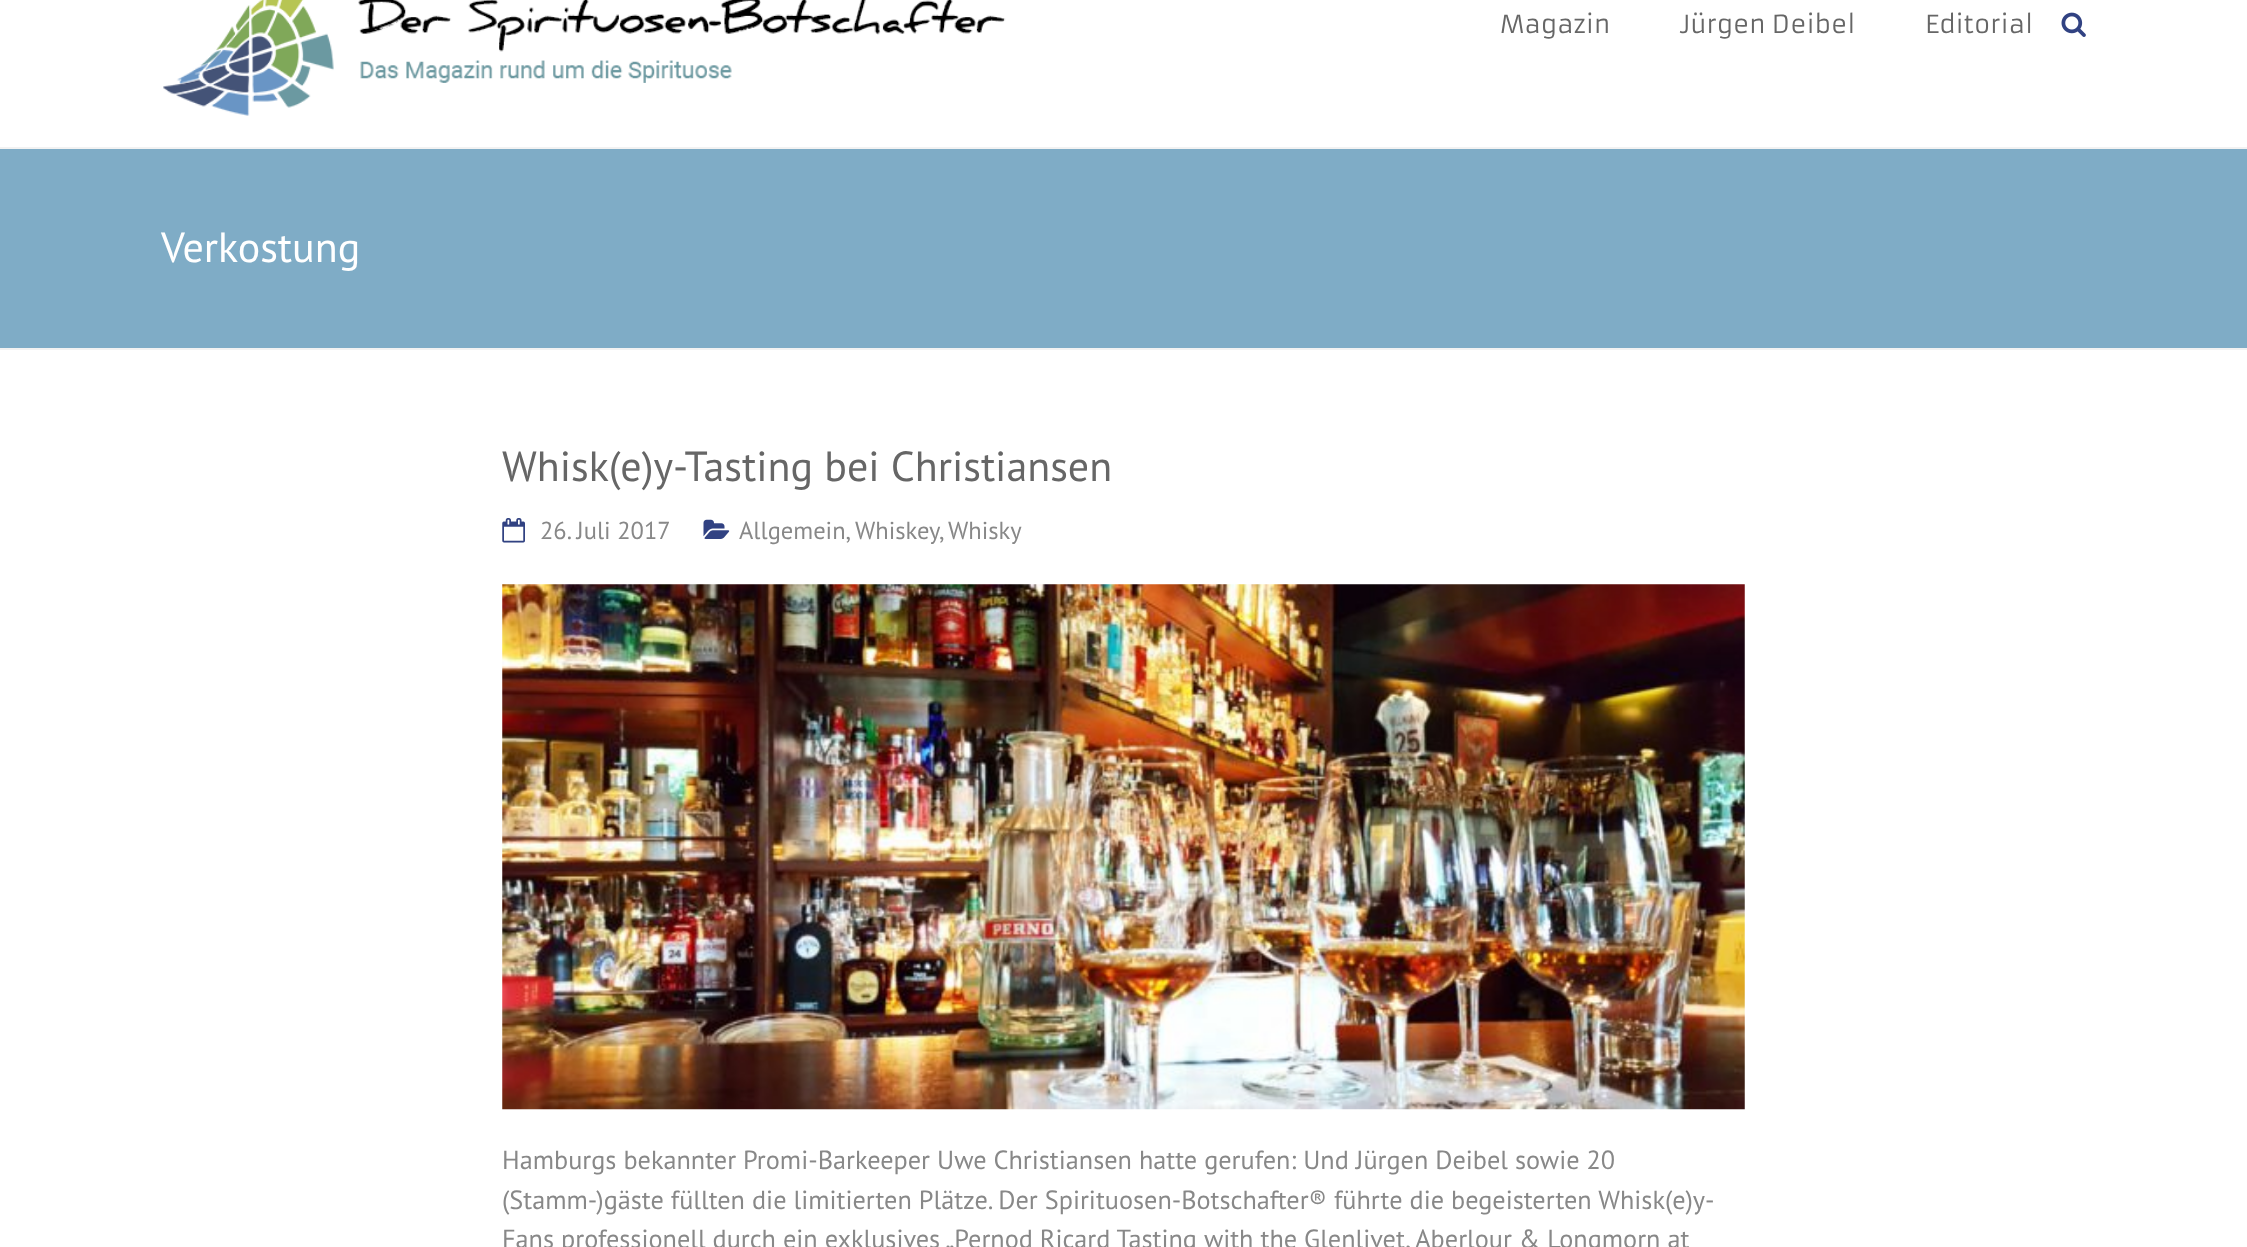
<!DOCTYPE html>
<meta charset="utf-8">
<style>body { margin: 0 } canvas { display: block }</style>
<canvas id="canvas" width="2247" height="1247"></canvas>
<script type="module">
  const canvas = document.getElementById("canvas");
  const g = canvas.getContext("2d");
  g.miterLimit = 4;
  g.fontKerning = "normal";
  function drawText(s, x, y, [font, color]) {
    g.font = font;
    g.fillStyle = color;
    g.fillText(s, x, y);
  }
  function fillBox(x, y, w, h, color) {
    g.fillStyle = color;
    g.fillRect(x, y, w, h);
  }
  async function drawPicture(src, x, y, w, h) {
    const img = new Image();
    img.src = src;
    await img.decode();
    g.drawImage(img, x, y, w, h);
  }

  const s1 = ["24.5px Armata", "#666666"];
  const s2 = ["42px PT Sans", "#FFFFFF"];
  const s3 = ["42px PT Sans", "#666666"];
  const s4 = ["24.5px PT Sans", "#888888"];
  const s5 = ["26.25px PT Sans", "#888888"];

  fillBox(0, 0, 2247, 1247, "#FFFFFF");
  fillBox(0, 147, 2247, 2, "#F2F2F2");
  await drawPicture("pic1.png", 163, 0, 843, 116);
  drawText("Magazin", 1500, 33, s1);
  drawText("Jürgen Deibel", 1680, 33, s1);
  drawText("Editorial", 1925, 33, s1);
  await drawPicture("pic2.png", 2061, 12, 25, 25);
  fillBox(0, 149, 2247, 199, "#7FACC6");
  fillBox(0, 348, 2247, 2, "#F2F2F2");
  drawText("Verkostung", 161, 262, s2);
  drawText("Whisk(e)y-Tasting bei Christiansen", 502, 481, s3);
  await drawPicture("pic3.png", 502, 518, 23, 25);
  drawText("26. Juli 2017", 540, 539, s4);
  await drawPicture("pic4.png", 703, 519, 27, 20);
  drawText("Allgemein,", 739, 539, s4);
  drawText("Whiskey", 855, 539, s4);
  drawText("Whisky", 948, 539, s4);
  drawText(",", 939, 539, s4);
  await drawPicture("pic5.png", 502, 584, 1243, 526);
  drawText("Hamburgs bekannter Promi-Barkeeper Uwe Christiansen hatte gerufen: Und Jürgen Deibel sowie 20", 502, 1169, s5);
  drawText("(Stamm-)gäste füllten die limitierten Plätze. Der Spirituosen-Botschafter® führte die begeisterten Whisk(e)y-", 502, 1209, s5);
  drawText("Fans professionell durch ein exklusives „Pernod Ricard Tasting with the Glenlivet, Aberlour & Longmorn at", 502, 1248, s5);
</script>
